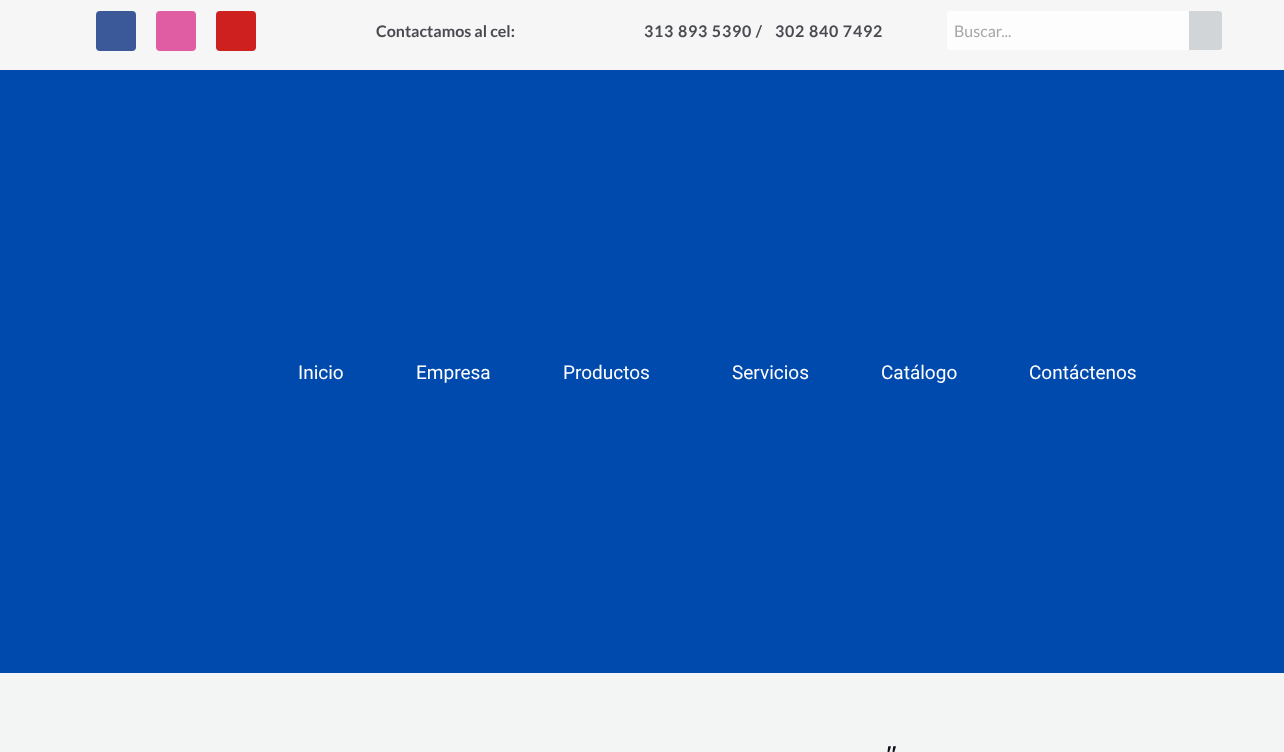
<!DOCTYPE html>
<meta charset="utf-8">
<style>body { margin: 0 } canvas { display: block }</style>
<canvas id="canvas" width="1284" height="752"></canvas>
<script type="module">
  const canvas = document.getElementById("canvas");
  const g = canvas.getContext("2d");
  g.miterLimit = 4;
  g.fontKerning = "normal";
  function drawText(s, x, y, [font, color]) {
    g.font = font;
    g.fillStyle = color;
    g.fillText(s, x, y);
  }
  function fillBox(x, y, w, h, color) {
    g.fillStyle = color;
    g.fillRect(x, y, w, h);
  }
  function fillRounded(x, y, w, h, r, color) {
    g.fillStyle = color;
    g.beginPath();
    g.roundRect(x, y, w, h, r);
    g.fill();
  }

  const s1 = ["bold 16px Lato", "#494B51"];
  const s2 = ["16px Lato", "#A7A7A7"];
  const s3 = ["19px Roboto", "#FFFFFF"];
  const s4 = ["30px Liberation Sans", "#101218"];

  fillBox(0, 0, 1284, 752, "#F3F5F5");
  fillBox(0, 0, 1284, 70, "#F6F6F6");
  fillRounded(96, 11, 40, 40, 4, "#3B5998");
  fillRounded(156, 11, 40, 40, 4, "#E15DA3");
  fillRounded(216, 11, 40, 40, 4, "#CD201F");
  drawText("Contactamos al cel:", 376, 37, s1);
  g.letterSpacing = "0.75px";
  drawText("313 893 5390 /", 644, 37, s1);
  drawText("302 840 7492", 775, 37, s1);
  g.fillStyle = "#FDFDFD";
  g.beginPath();
  g.roundRect(947, 11, 242, 39, [3, 0, 0, 3]);
  g.fill();
  g.letterSpacing = "0px";
  drawText("Buscar...", 954, 37, s2);
  g.fillStyle = "#D2D5D7";
  g.beginPath();
  g.roundRect(1189, 11, 33, 39, [0, 3, 3, 0]);
  g.fill();
  fillBox(0, 70, 1284, 603, "#0049AD");
  drawText("Inicio", 298, 379, s3);
  drawText("Empresa", 416, 379, s3);
  drawText("Productos", 563, 379, s3);
  drawText("Servicios", 732, 379, s3);
  drawText("Catálogo", 881, 379, s3);
  drawText("Contáctenos", 1029, 379, s3);
  drawText("″", 886, 767, s4);
</script>
